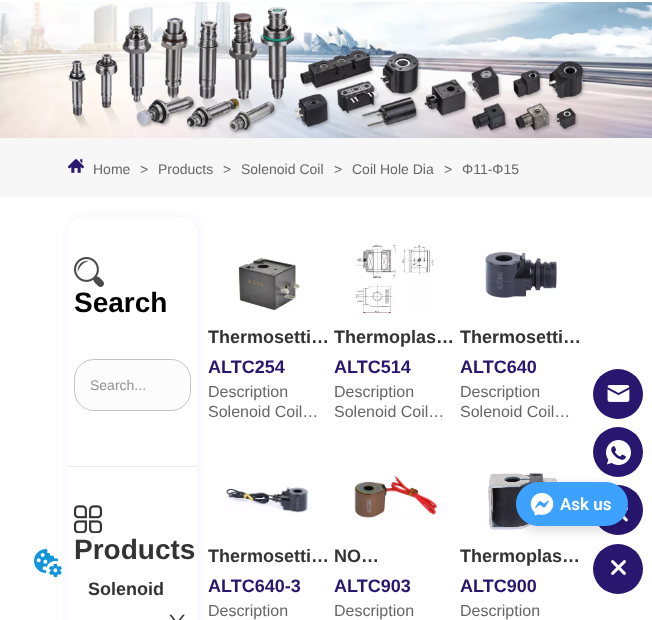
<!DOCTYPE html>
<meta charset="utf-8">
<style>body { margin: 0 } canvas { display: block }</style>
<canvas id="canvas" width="652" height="620"></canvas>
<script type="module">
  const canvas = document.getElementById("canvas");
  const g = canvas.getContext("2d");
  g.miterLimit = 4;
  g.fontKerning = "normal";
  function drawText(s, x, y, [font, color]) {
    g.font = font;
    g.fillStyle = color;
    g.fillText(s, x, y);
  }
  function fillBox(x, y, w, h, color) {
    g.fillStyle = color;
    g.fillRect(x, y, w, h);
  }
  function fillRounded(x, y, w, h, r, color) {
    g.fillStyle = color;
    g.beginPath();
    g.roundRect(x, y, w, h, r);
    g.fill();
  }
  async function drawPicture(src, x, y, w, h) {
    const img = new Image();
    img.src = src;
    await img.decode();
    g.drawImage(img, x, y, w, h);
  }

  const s1 = ["14px Liberation Sans", "#666666"];
  const s2 = ["bold 28px Liberation Sans", "#000000"];
  const s3 = ["14px Liberation Sans", "#929292"];
  const s4 = ["bold 28px Liberation Sans", "#333333"];
  const s5 = ["bold 18px Liberation Sans", "#333333"];
  const s6 = ["bold 18px Liberation Sans", "#28166F"];
  const s7 = ["16px Liberation Sans", "#666666"];
  const s8 = ["600 17px Roboto", "#FFFFFF"];

  fillBox(0, 0, 652, 620, "#FFFFFF");
  await drawPicture("pic1.png", 0, 2, 652, 136);
  fillBox(0, 138, 652, 59, "#F8F7F7");
  await drawPicture("pic2.png", 68, 159, 16, 14);
  drawText("Home", 93, 174, s1);
  drawText(">", 140, 174, s1);
  drawText("Products", 158, 174, s1);
  drawText(">", 223, 174, s1);
  drawText("Solenoid Coil", 241, 174, s1);
  drawText(">", 334, 174, s1);
  drawText("Coil Hole Dia", 352, 174, s1);
  drawText(">", 444, 174, s1);
  drawText("Φ11-Φ15", 462, 174, s1);
  g.fillStyle = "rgba(234, 230, 246, 0.5)";
  g.filter = "blur(4px)";
  g.beginPath();
  g.roundRect(68, 216, 131, 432, 16);
  g.fill();
  g.filter = "none";
  fillRounded(68, 217, 129, 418, 15, "#FFFFFF");
  await drawPicture("pic3.png", 74, 257, 30, 30);
  drawText("Search", 74, 312, s2);
  g.beginPath();
  g.roundRect(74.5, 359.5, 116, 51, 19.5);
  g.strokeStyle = "#C3C2C4";
  g.stroke();
  fillRounded(75, 360, 115, 50, 19, "rgba(238, 238, 238, 0.2)");
  drawText("Search...", 90, 390, s3);
  fillBox(68, 466, 129, 1, "#EAE6F6");
  await drawPicture("pic4.png", 74, 505, 28, 28);
  drawText("Products", 74, 559, s4);
  drawText("Solenoid", 88, 595, s5);
  await drawPicture("pic5.png", 169, 614, 16, 6);
  await drawPicture("pic6.png", 238, 258, 62, 52);
  g.save();
  g.beginPath();
  g.rect(208, 322, 121, 30);
  g.clip();
  drawText("Thermosetti…", 208, 343, s5);
  g.restore();
  drawText("ALTC254", 208, 373, s6);
  drawText("Description", 208, 397, s7);
  drawText("Solenoid Coil…", 208, 417, s7);
  await drawPicture("pic7.png", 356, 245, 78, 69);
  drawText("Thermoplas…", 334, 343, s5);
  drawText("ALTC514", 334, 373, s6);
  drawText("Description", 334, 397, s7);
  drawText("Solenoid Coil…", 334, 417, s7);
  await drawPicture("pic8.png", 485, 251, 72, 47);
  drawText("Thermosetti…", 460, 343, s5);
  drawText("ALTC640", 460, 373, s6);
  drawText("Description", 460, 397, s7);
  drawText("Solenoid Coil…", 460, 417, s7);
  await drawPicture("pic9.png", 226, 487, 86, 26);
  g.save();
  g.beginPath();
  g.rect(208, 541, 121, 30);
  g.clip();
  drawText("Thermosetti…", 208, 562, s5);
  g.restore();
  drawText("ALTC640-3", 208, 592, s6);
  drawText("Description", 208, 616, s7);
  await drawPicture("pic10.png", 354, 475, 84, 43);
  drawText("NO…", 334, 562, s5);
  drawText("ALTC903", 334, 592, s6);
  drawText("Description", 334, 616, s7);
  await drawPicture("pic11.png", 488, 473, 70, 57);
  drawText("Thermoplas…", 460, 562, s5);
  drawText("ALTC900", 460, 592, s6);
  drawText("Description", 460, 616, s7);
  g.fillStyle = "#28166F";
  g.beginPath();
  g.arc(618, 394, 25, 0, Math.PI * 2);
  g.fill();
  await drawPicture("pic12.png", 607, 385, 23, 17);
  g.beginPath();
  g.arc(618, 452, 25, 0, Math.PI * 2);
  g.fill();
  await drawPicture("pic13.png", 606, 440, 25, 25);
  g.beginPath();
  g.arc(618, 510, 25, 0, Math.PI * 2);
  g.fill();
  await drawPicture("pic14.png", 622, 507, 6, 15);
  g.beginPath();
  g.arc(618, 569, 25, 0, Math.PI * 2);
  g.fill();
  await drawPicture("pic15.png", 611, 560, 15, 15);
  g.fillStyle = "rgba(0, 0, 0, 0.15)";
  g.filter = "blur(6px)";
  g.beginPath();
  g.roundRect(517, 486, 111, 44, 22);
  g.fill();
  g.filter = "none";
  fillRounded(516, 482, 112, 44, 22, "#3DA1FF");
  await drawPicture("pic16.png", 530, 493, 24, 23);
  drawText("Ask us", 560, 510, s8);
  await drawPicture("pic17.png", 34, 549, 28, 28);
</script>
